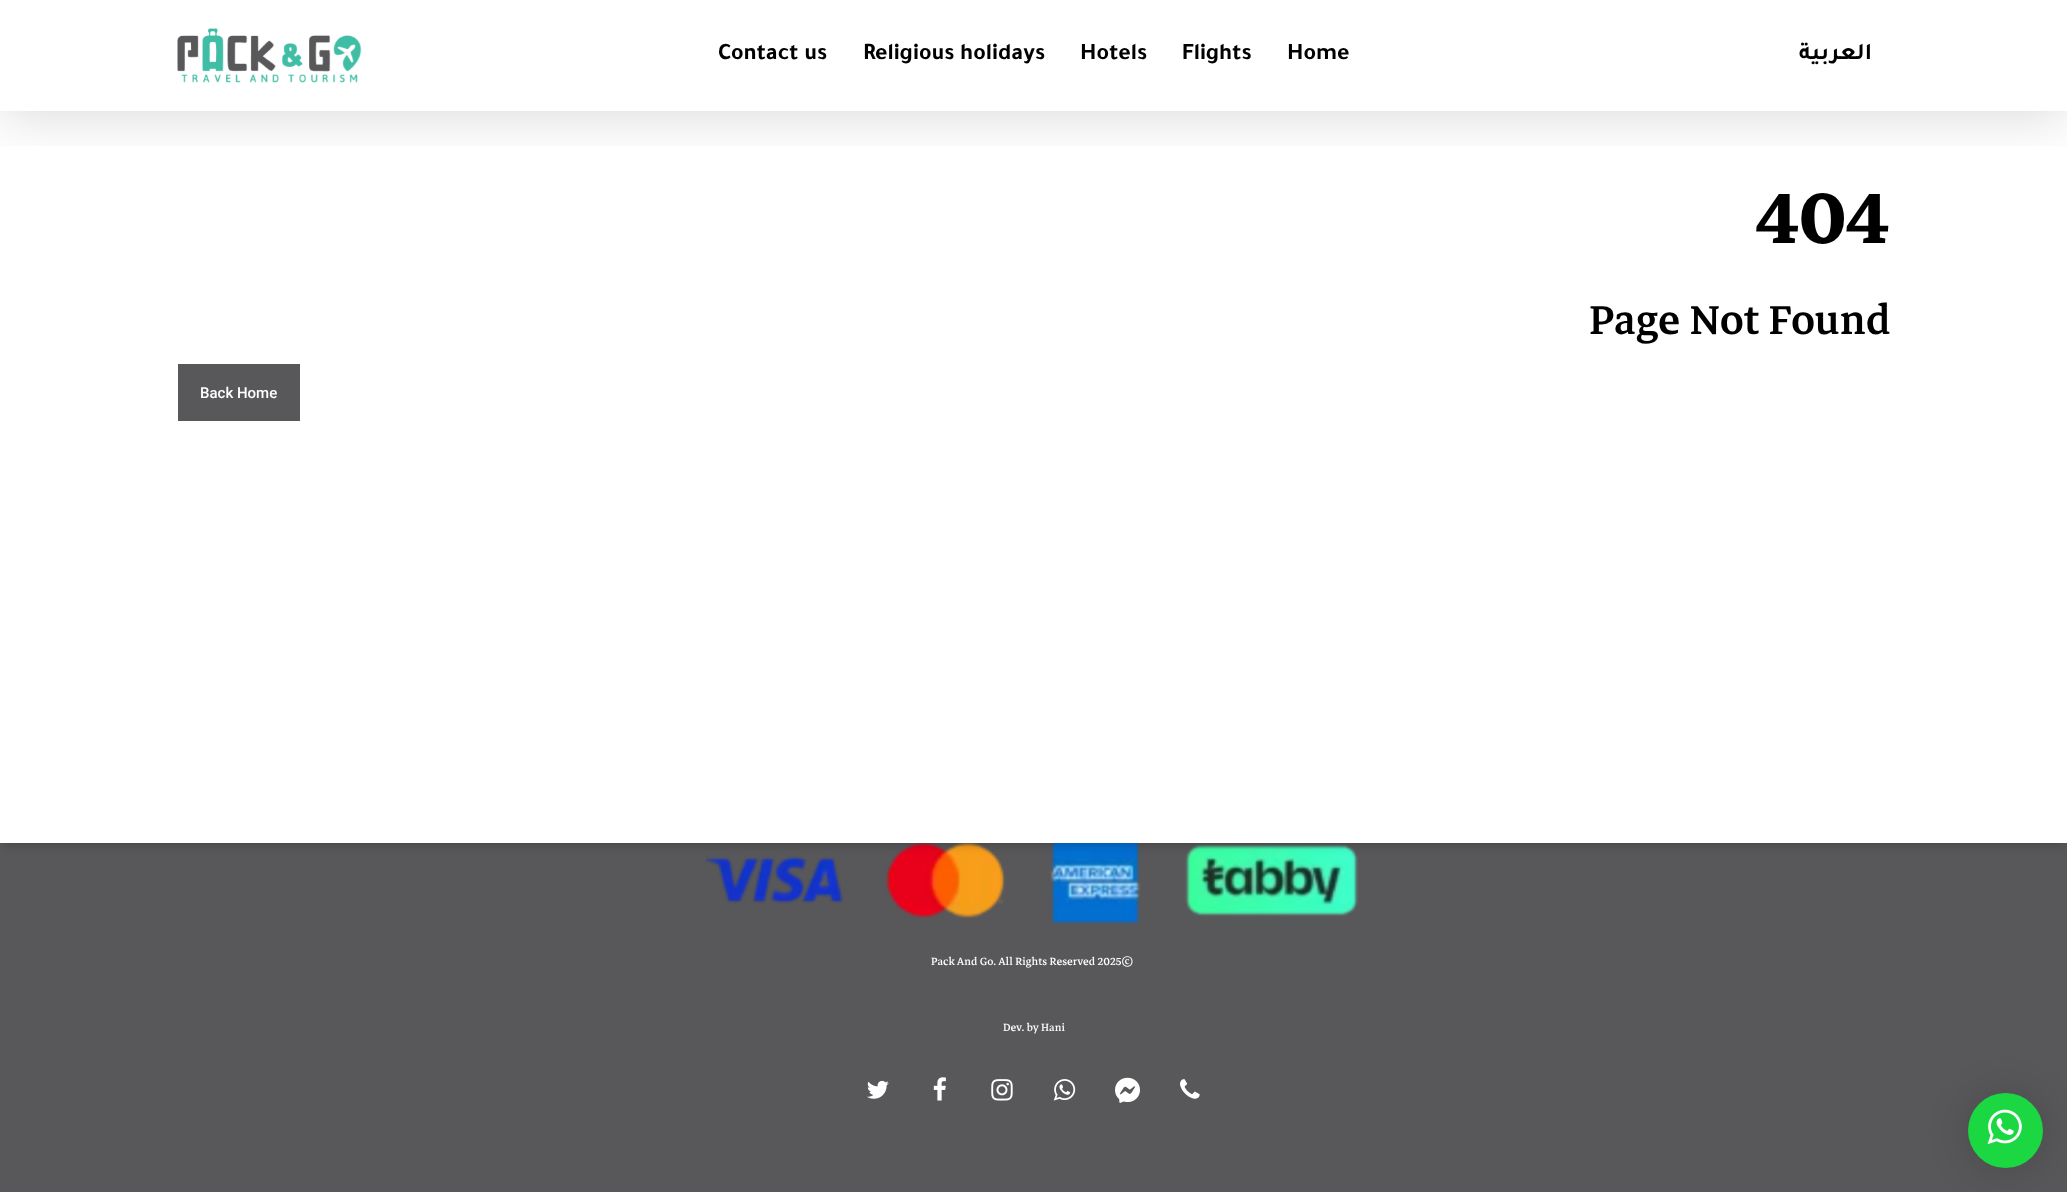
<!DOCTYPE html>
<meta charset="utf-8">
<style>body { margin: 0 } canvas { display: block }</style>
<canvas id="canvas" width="2067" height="1192"></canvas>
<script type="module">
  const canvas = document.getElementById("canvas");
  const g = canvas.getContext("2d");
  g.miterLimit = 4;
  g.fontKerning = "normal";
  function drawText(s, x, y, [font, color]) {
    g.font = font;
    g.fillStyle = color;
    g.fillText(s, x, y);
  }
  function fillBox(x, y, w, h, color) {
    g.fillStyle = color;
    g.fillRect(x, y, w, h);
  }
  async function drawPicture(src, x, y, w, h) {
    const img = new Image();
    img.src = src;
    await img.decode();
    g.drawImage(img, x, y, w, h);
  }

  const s1 = ["bold 23.75px Tajawal", "#000000"];
  const s2 = ["bold 102px Markazi Text", "#000000"];
  const s3 = ["500 57.5px Markazi Text", "#000000"];
  const s4 = ["500 15px Roboto", "#FFFFFF"];
  const s5 = ["15px Markazi Text", "#FFFFFF"];

  fillBox(0, 0, 2067, 1192, "#FFFFFF");
  fillBox(0, 843, 2067, 349, "#58585A");
  await drawPicture("pic2.png", 705, 843, 653, 82);
  g.fillStyle = "rgba(0, 0, 0, 0.2)";
  g.filter = "blur(5px)";
  g.beginPath();
  g.rect(4, 121, 2060, 724);
  g.fill();
  g.filter = "none";
  fillBox(0, 113, 2067, 730, "#FFFFFF");
  g.save();
  g.beginPath();
  g.rect(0, 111, 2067, 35);
  g.clip();
  g.fillStyle = "rgba(0, 0, 0, 0.15)";
  g.filter = "blur(28px)";
  g.beginPath();
  g.rect(0, 4, 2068, 111);
  g.fill();
  g.filter = "none";
  g.restore();
  await drawPicture("pic1.png", 177, 28, 185, 55);
  drawText("Contact us", 718, 59, s1);
  drawText("Religious holidays", 863, 59, s1);
  drawText("Hotels", 1080, 59, s1);
  drawText("Flights", 1182, 59, s1);
  drawText("Home", 1287, 59, s1);
  g.direction = "rtl";
  drawText("العربية", 1872, 59, s1);
  g.direction = "ltr";
  drawText("404", 1756, 243, s2);
  drawText("Page Not Found", 1589, 334, s3);
  fillBox(178, 364, 122, 57, "#58585A");
  drawText("Back Home", 200, 398, s4);
  drawText("Pack And Go. All Rights Reserved 2025©", 931, 965, s5);
  drawText("Dev. by Hani", 1003, 1031, s5);
  await drawPicture("pic3.png", 867, 1080, 22, 19);
  await drawPicture("pic4.png", 933, 1077, 13, 24);
  await drawPicture("pic5.png", 991, 1079, 22, 22);
  await drawPicture("pic6.png", 1053, 1079, 23, 22);
  await drawPicture("pic7.png", 1115, 1077, 25, 26);
  await drawPicture("pic8.png", 1180, 1079, 20, 20);
  g.fillStyle = "rgba(0, 0, 0, 0.16)";
  g.filter = "blur(20px)";
  g.beginPath();
  g.roundRect(1968, 1095, 75, 75, 37.5);
  g.fill();
  g.filter = "none";
  g.fillStyle = "#1BD741";
  g.beginPath();
  g.arc(2005.5, 1130.5, 37.5, 0, Math.PI * 2);
  g.fill();
  await drawPicture("pic9.png", 1987, 1109, 35, 36);
</script>
